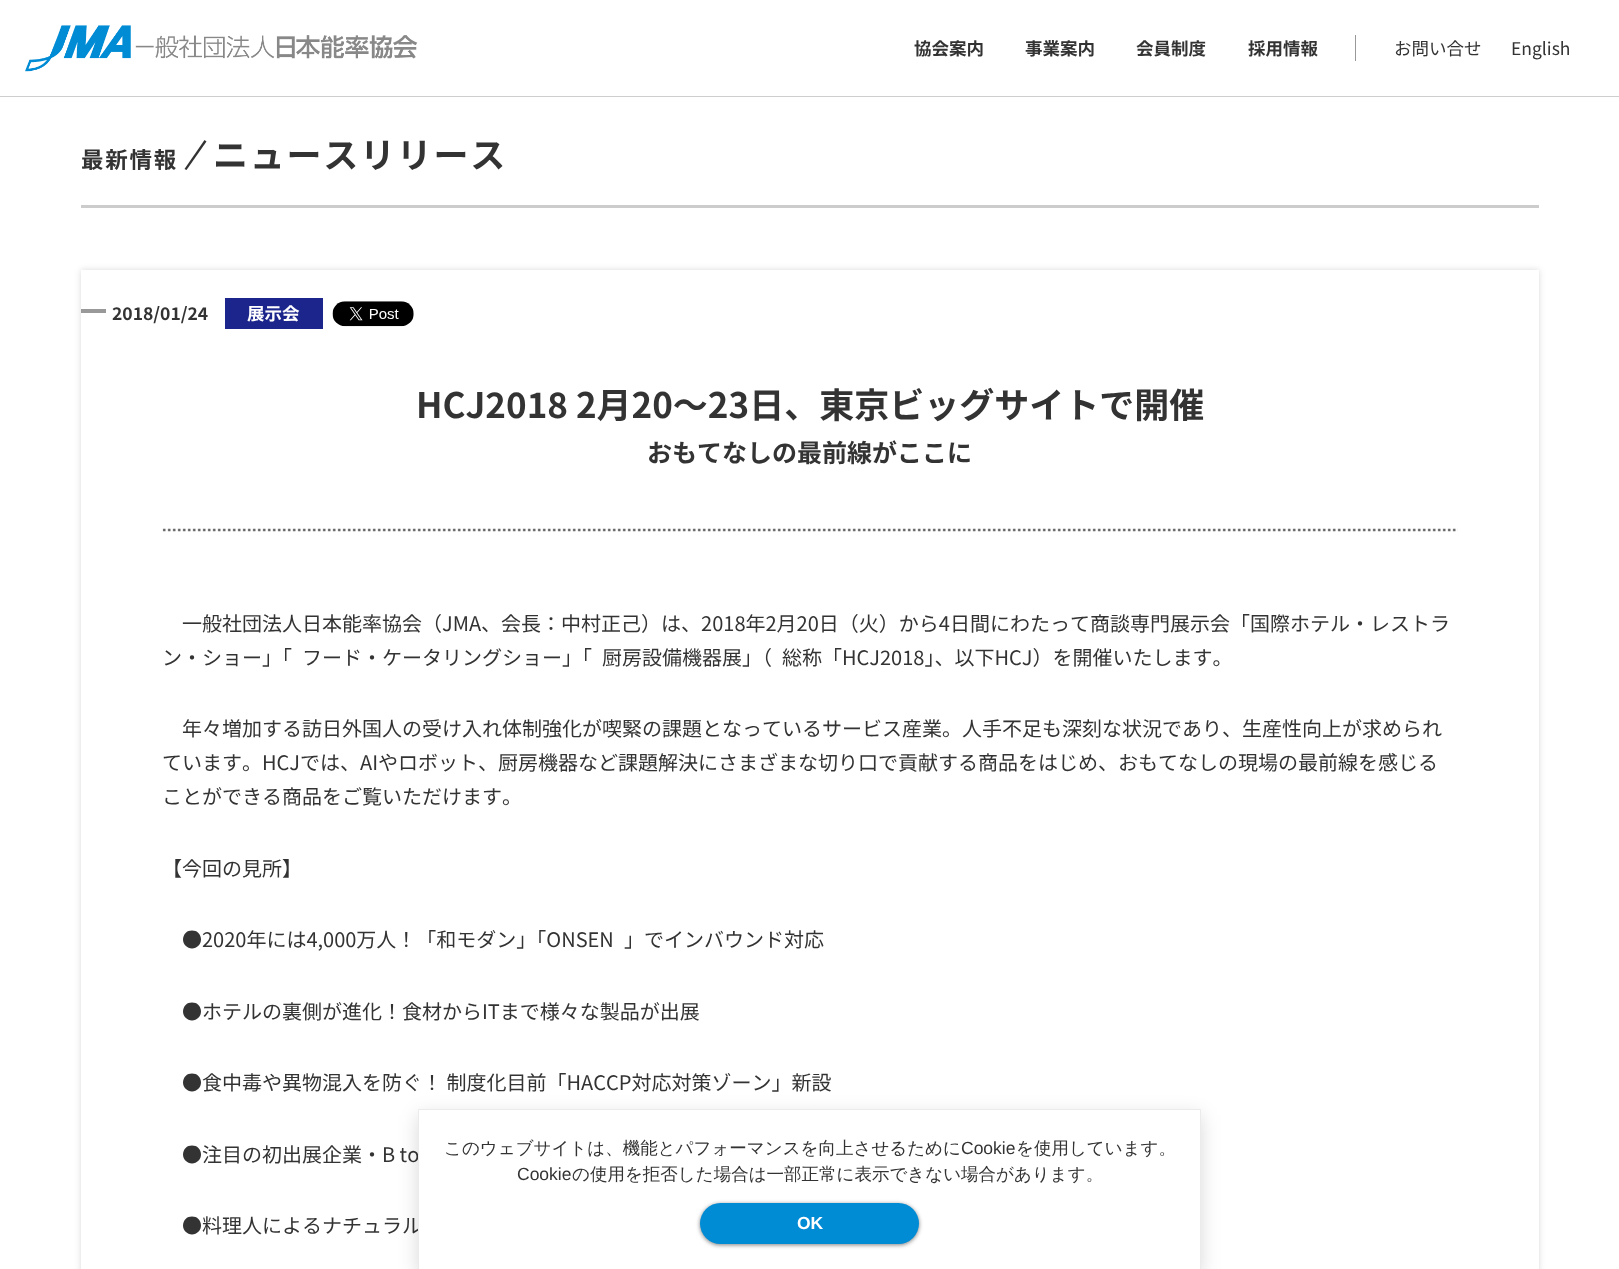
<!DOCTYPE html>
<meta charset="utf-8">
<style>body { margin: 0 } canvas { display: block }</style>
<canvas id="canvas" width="1619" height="1269"></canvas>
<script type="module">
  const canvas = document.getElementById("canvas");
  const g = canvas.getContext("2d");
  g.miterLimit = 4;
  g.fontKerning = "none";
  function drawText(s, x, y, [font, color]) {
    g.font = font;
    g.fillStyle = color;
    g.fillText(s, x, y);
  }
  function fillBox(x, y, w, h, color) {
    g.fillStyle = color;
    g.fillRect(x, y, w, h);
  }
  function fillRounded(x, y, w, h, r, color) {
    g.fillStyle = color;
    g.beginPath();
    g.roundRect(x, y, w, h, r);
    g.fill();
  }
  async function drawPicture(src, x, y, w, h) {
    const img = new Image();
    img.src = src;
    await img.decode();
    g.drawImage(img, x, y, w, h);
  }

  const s1 = ["bold 17.5px Noto Sans JP", "#333333"];
  const s2 = ["17.5px Noto Sans JP", "#333333"];
  const s3 = ["bold 22.5px Noto Sans JP", "#333333"];
  const s4 = ["bold 35px Noto Sans JP", "#333333"];
  const s5 = ["bold 17.5px Noto Sans JP", "#FFFFFF"];
  const s6 = ["bold 25px Noto Sans JP", "#333333"];
  const s7 = ["20px Noto Sans JP", "#333333"];
  const s8 = ["500 17.5px WenQuanYi Zen Hei", "#333333"];
  const s9 = ["17.5px Liberation Sans", "#333333"];
  const s10 = ["bold 17.5px Liberation Sans", "#FFFFFF"];

  fillBox(0, 0, 1619, 1269, "#FFFFFF");
  fillBox(0, 96, 1619, 1, "#CECECE");
  await drawPicture("pic1.png", 25, 25, 393, 47);
  fillBox(1355, 35, 1, 26, "#999999");
  drawText("協会案内", 914, 55, s1);
  drawText("事業案内", 1025, 55, s1);
  drawText("会員制度", 1136, 55, s1);
  drawText("採用情報", 1248, 55, s1);
  drawText("お問い合せ", 1394, 55, s2);
  drawText("English", 1511, 55, s2);
  g.letterSpacing = "1.75px";
  drawText("最新情報", 81, 168, s3);
  g.beginPath();
  g.moveTo(184.5, 169);
  g.lineTo(204.5, 140);
  g.lineTo(206.5, 141.5);
  g.lineTo(186.5, 170);
  g.closePath();
  g.fill();
  drawText("ニュースリリース", 213, 168, s4);
  fillBox(81, 205, 1458, 3, "#CCCCCC");
  g.fillStyle = "rgba(0, 0, 0, 0.15)";
  g.filter = "blur(3px)";
  g.beginPath();
  g.rect(81, 270, 1458, 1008);
  g.fill();
  g.filter = "none";
  fillBox(81, 270, 1458, 999, "#FFFFFF");
  await drawPicture("pic2.png", 162, 528, 1296, 4);
  fillBox(81, 309, 25, 4, "#999999");
  g.letterSpacing = "0px";
  drawText("2018/01/24", 112, 320, s1);
  fillBox(225, 298, 98, 31, "#1C258C");
  drawText("展示会", 247, 320, s5);
  await drawPicture("pic3.png", 332, 301, 82, 26);
  drawText("HCJ2018 2月20〜23日、東京ビッグサイトで開催", 416, 418, s4);
  drawText("おもてなしの最前線がここに", 647, 462, s6);
  drawText("一般社団法人日本能率協会（JMA、会長：中村正己）は、2018年2月20日（火）から4日間にわたって商談専門展示会「国際ホテル・レストラ", 182, 631, s7);
  drawText("ン・ショー」「", 162, 665, s7);
  drawText("フード・ケータリングショー」「", 302, 665, s7);
  drawText("厨房設備機器展」（", 602, 665, s7);
  drawText("総称「HCJ2018」、以下HCJ）を開催いたします。", 782, 665, s7);
  drawText("年々増加する訪日外国人の受け入れ体制強化が喫緊の課題となっているサービス産業。人手不足も深刻な状況であり、生産性向上が求められ", 182, 736, s7);
  drawText("ています。HCJでは、AIやロボット、厨房機器など課題解決にさまざまな切り口で貢献する商品をはじめ、おもてなしの現場の最前線を感じる", 162, 770, s7);
  drawText("ことができる商品をご覧いただけます。", 162, 804, s7);
  drawText("【今回の見所】", 162, 876, s7);
  drawText("●2020年には4,000万人！「和モダン」「ONSEN", 182, 947, s7);
  drawText("」でインバウンド対応", 624, 947, s7);
  drawText("●ホテルの裏側が進化！食材からITまで様々な製品が出展", 182, 1019, s7);
  drawText("●食中毒や異物混入を防ぐ！ 制度化目前「HACCP対応対策ゾーン」新設", 182, 1090, s7);
  drawText("●注目の初出展企業・B to", 182, 1162, s7);
  drawText("●料理人によるナチュラル", 182, 1233, s7);
  g.fillStyle = "rgba(0, 0, 0, 0.15)";
  g.filter = "blur(9.5px)";
  g.beginPath();
  g.rect(418, 1115, 783, 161);
  g.fill();
  g.filter = "none";
  g.fillStyle = "#FFFFFF";
  g.beginPath();
  g.rect(418.5, 1109.5, 782, 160);
  g.fill();
  g.strokeStyle = "#EBEBEB";
  g.stroke();
  drawText("このウェブサイトは、機能とパフォーマンスを向上させるために", 444, 1154, s8);
  drawText("Cookie", 961, 1154, s9);
  drawText("を使用しています。", 1016, 1154, s8);
  drawText("Cookie", 517, 1180, s9);
  drawText("の使用を拒否した場合は一部正常に表示できない場合があります。", 572, 1180, s8);
  g.fillStyle = "rgba(0, 0, 0, 0.5)";
  g.filter = "blur(2px)";
  g.beginPath();
  g.roundRect(700, 1204, 219, 41, 20.5);
  g.fill();
  g.filter = "none";
  fillRounded(700, 1203, 219, 41, 20.5, "#008BD5");
  drawText("OK", 797, 1229, s10);
</script>
